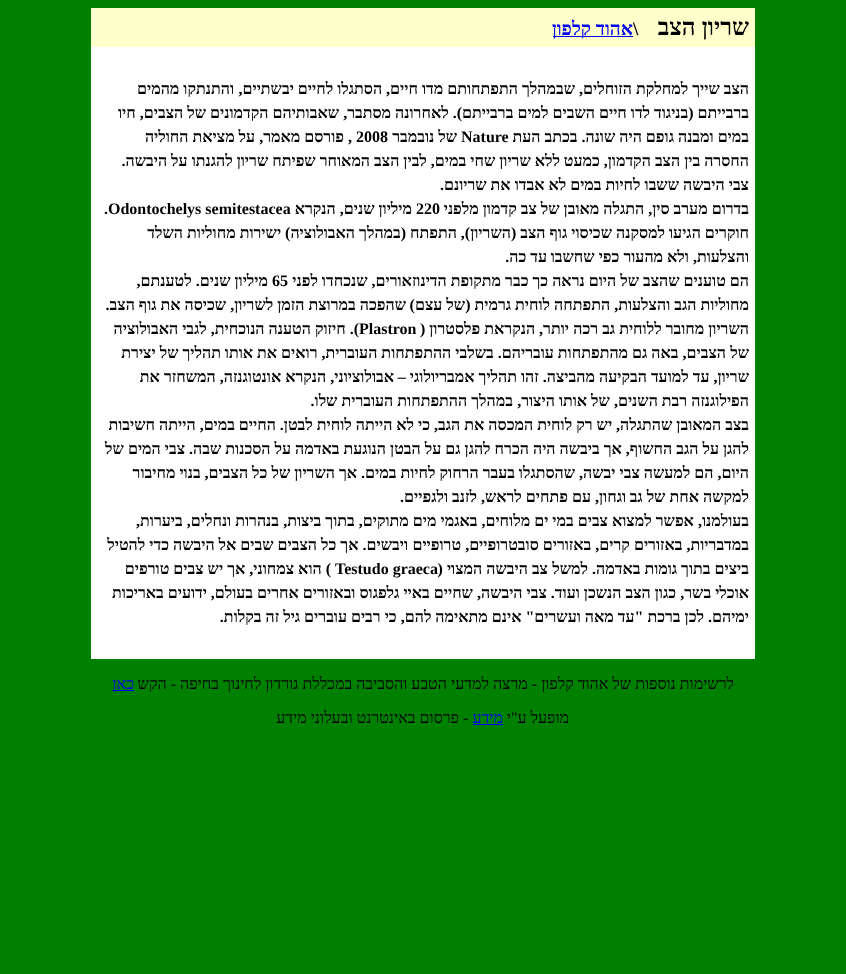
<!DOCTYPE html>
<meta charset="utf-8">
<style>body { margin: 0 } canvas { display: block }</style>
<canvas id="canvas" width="846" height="974"></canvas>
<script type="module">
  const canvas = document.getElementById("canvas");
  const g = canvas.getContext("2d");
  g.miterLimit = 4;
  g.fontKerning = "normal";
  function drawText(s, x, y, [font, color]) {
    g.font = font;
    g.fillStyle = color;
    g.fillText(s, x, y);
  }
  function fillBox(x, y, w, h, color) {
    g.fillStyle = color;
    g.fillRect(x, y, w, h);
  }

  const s1 = ["bold 24px Liberation Serif", "#000000"];
  const s2 = ["bold 19px Liberation Serif", "#000000"];
  const s3 = ["bold 19px Liberation Serif", "#0000EE"];
  const s4 = ["bold 16px Liberation Serif", "#000000"];
  const s5 = ["16px Liberation Serif", "#000000"];
  const s6 = ["16px Liberation Serif", "#0000EE"];

  fillBox(0, 0, 846, 974, "#008000");
  fillBox(91, 8, 664, 39, "#FFFFCC");
  g.direction = "rtl";
  drawText("שריון הצב", 749, 35, s1);
  g.direction = "ltr";
  drawText("\\", 633, 35, s2);
  g.direction = "rtl";
  drawText("אהוד", 633, 35, s3);
  fillBox(553, 36, 80, 1, "#0000EE");
  drawText("קלפון", 591, 35, s3);
  fillBox(91, 47, 664, 612, "#FFFFFF");
  drawText("הצב שייך למחלקת הזוחלים, שבמהלך התפתחותם מדו חיים, הסתגלו לחיים יבשתיים,", 749, 94, s4);
  drawText("והתנתקו מהמים", 234, 94, s4);
  drawText("ברבייתם (בניגוד לדו חיים השבים למים ברבייתם). לאחרונה מסתבר,", 749, 118, s4);
  drawText("שאבותיהם הקדמונים של הצבים, חיו", 339, 118, s4);
  drawText("במים ומבנה גופם היה שונה. בכתב העת", 749, 142, s4);
  g.direction = "ltr";
  drawText("Nature", 461, 142, s4);
  g.direction = "rtl";
  drawText("של נובמבר", 457, 142, s4);
  g.direction = "ltr";
  drawText("2008", 356, 142, s4);
  g.direction = "rtl";
  drawText(", פורסם מאמר, על מציאת החוליה", 352, 142, s4);
  drawText("החסרה בין הצב הקדמון, כמעט", 749, 166, s4);
  drawText("ללא שריון שחי במים, לבין הצב המאוחר שפיתח שריון להגנתו על היבשה.", 560, 166, s4);
  drawText("צבי היבשה", 749, 190, s4);
  drawText("ששבו לחיות במים לא אבדו את שריונם.", 679, 190, s4);
  drawText("בדרום מערב סין, התגלה מאובן של צב קדמון מלפני", 749, 214, s4);
  g.direction = "ltr";
  drawText("220", 416, 214, s4);
  g.direction = "rtl";
  drawText("מיליון שנים, הנקרא", 412, 214, s4);
  g.direction = "ltr";
  drawText(".Odontochelys semitestacea", 104, 214, s4);
  g.direction = "rtl";
  drawText("חוקרים הגיעו למסקנה שכיסוי גוף הצב (השריון),", 749, 238, s4);
  drawText("התפתח (במהלך האבולוציה) ישירות מחוליות השלד", 457, 238, s4);
  drawText("והצלעות, ולא מהעור כפי שחשבו", 749, 262, s4);
  drawText("עד כה.", 547, 262, s4);
  drawText("הם טוענים שהצב של היום נראה כך כבר מתקופת הדינוזאורים, שנכחדו לפני", 749, 286, s4);
  g.direction = "ltr";
  drawText("65", 272, 286, s4);
  g.direction = "rtl";
  drawText("מיליון שנים. לטענתם,", 268, 286, s4);
  drawText("מחוליות הגב והצלעות, התפתחה לוחית גרמית (של עצם)", 749, 310, s4);
  drawText("שהפכה במרוצת הזמן לשריון, שכיסה את גוף הצב.", 406, 310, s4);
  drawText("השריון מחובר ללוחית גב רכה", 749, 334, s4);
  drawText("יותר, הנקראת פלסטרון (", 569, 334, s4);
  drawText("). חיזוק הטענה הנוכחית, לגבי האבולוציה", 359, 334, s4);
  g.direction = "ltr";
  drawText("Plastron", 359, 334, s4);
  g.direction = "rtl";
  drawText("של", 749, 358, s4);
  drawText("הצבים, באה גם מהתפתחות עובריהם. בשלבי ההתפתחות העוברית, רואים את אותו", 726, 358, s4);
  drawText("תהליך של יצירת", 221, 358, s4);
  drawText("שריון, עד למועד הבקיעה מהביצה. זהו תהליך אמבריולוגי –", 749, 382, s4);
  drawText("אבולוציוני, הנקרא אונטוגנזה, המשחזר את", 394, 382, s4);
  drawText("הפילוגנזה רבת השנים, של אותו היצור,", 749, 406, s4);
  drawText("במהלך ההתפתחות העוברית שלו.", 513, 406, s4);
  drawText("בצב המאובן שהתגלה, יש רק לוחית המכסה את הגב, כי לא הייתה לוחית לבטן. החיים", 749, 430, s4);
  drawText("במים, הייתה חשיבות", 235, 430, s4);
  drawText("להגן על הגב החשוף, אך ביבשה היה הכרח להגן גם על הבטן", 749, 454, s4);
  drawText("הנוגעת באדמה על הסכנות שבה. צבי המים של", 386, 454, s4);
  drawText("היום, הם למעשה צבי יבשה, שהסתגלו", 749, 478, s4);
  drawText("בעבר הרחוק לחיות במים. אך השריון של כל הצבים, בנוי מחיבור", 515, 478, s4);
  drawText("למקשה אחת של גב", 749, 502, s4);
  drawText("וגחון, עם פתחים לראש, לזנב ולגפיים.", 626, 502, s4);
  drawText("בעולמנו, אפשר למצוא צבים במי ים מלוחים, באגמי מים מתוקים, בתוך ביצות,", 749, 526, s4);
  drawText("בנהרות ונחלים, ביערות,", 279, 526, s4);
  drawText("במדבריות, באזורים קרים, באזורים סובטרופיים, טרופיים", 749, 550, s4);
  drawText("ויבשים. אך כל הצבים שבים אל היבשה כדי להטיל", 408, 550, s4);
  drawText("ביצים בתוך גומות באדמה. למשל", 749, 574, s4);
  drawText("צב היבשה המצוי (", 548, 574, s4);
  g.direction = "ltr";
  drawText("Testudo graeca", 335, 574, s4);
  g.direction = "rtl";
  drawText(") הוא צמחוני, אך יש צבים טורפים", 331, 574, s4);
  drawText("אוכלי בשר,", 749, 598, s4);
  drawText("כגון הצב הנשכן ועוד. צבי היבשה, שחיים באיי גלפגוס ובאזורים אחרים בעולם,", 676, 598, s4);
  drawText("ידועים באריכות", 207, 598, s4);
  drawText("ימיהם. לכן ברכת \"עד מאה ועשרים\" אינם מתאימה להם, כי רבים", 749, 622, s4);
  drawText("עוברים גיל זה בקלות.", 347, 622, s4);
  drawText("לרשימות נוספות של אהוד קלפון - מרצה למדעי הטבע והסביבה במכללת גורדון לחינוך בחיפה", 734, 689, s5);
  drawText("- הקש", 176, 689, s5);
  fillBox(112, 690, 22, 1, "#0000EE");
  drawText("כאן", 134, 689, s6);
  drawText("מופעל ע\"י", 569, 723, s5);
  drawText("מידע", 503, 723, s6);
  fillBox(473, 724, 30, 1, "#0000EE");
  g.direction = "ltr";
  drawText("-", 463, 723, s5);
  g.direction = "rtl";
  drawText("פרסום באינטרנט ובעלוני מידע", 459, 723, s5);
</script>
